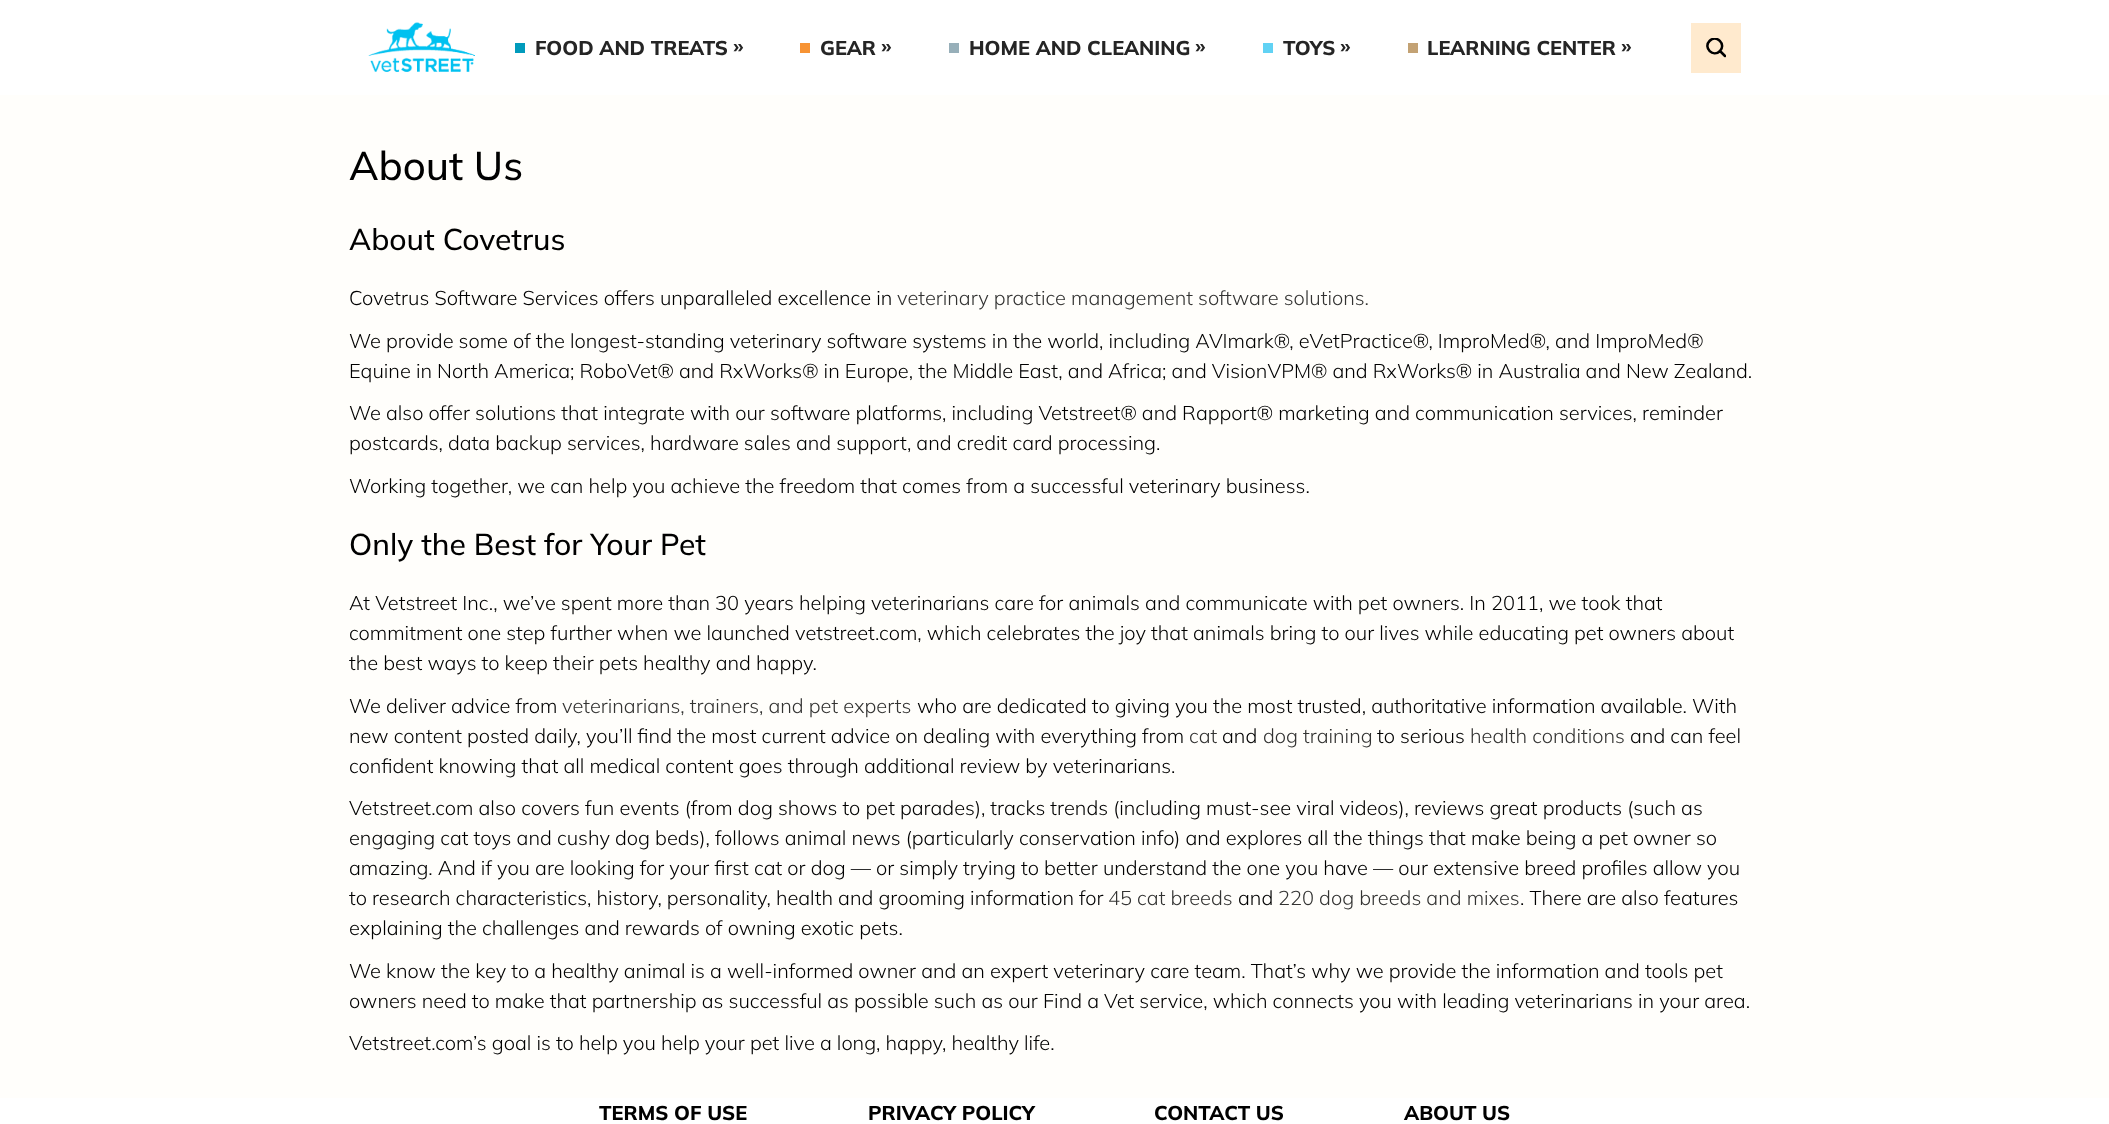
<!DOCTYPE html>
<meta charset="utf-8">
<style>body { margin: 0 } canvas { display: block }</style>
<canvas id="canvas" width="2109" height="1124"></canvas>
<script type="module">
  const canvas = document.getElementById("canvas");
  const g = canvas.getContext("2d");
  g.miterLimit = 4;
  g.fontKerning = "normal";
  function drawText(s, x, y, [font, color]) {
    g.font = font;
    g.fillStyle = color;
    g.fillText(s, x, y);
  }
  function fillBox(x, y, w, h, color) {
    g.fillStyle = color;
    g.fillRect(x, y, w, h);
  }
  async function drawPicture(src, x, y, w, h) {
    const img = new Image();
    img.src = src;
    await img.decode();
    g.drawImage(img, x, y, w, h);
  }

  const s1 = ["800 20px Mulish", "#252525"];
  const s2 = ["500 40px Mulish", "#000000"];
  const s3 = ["500 30px Mulish", "#000000"];
  const s4 = ["300 20px Mulish", "#000000"];
  const s5 = ["300 20px Mulish", "#333332"];
  const s6 = ["800 20px Mulish", "#000000"];

  fillBox(0, 0, 2109, 1124, "#FFFFFF");
  await drawPicture("pic1.png", 368, 22, 107, 50);
  fillBox(515, 43, 10, 10, "#019BBC");
  drawText("FOOD AND TREATS", 535, 55, s1);
  drawText("»", 733, 53, s1);
  fillBox(800, 43, 10, 10, "#F79334");
  drawText("GEAR", 820, 55, s1);
  drawText("»", 881, 53, s1);
  fillBox(949, 43, 10, 10, "#97AFB9");
  drawText("HOME AND CLEANING", 969, 55, s1);
  drawText("»", 1195, 53, s1);
  fillBox(1263, 43, 10, 10, "#61D2F4");
  drawText("TOYS", 1283, 55, s1);
  drawText("»", 1340, 53, s1);
  fillBox(1408, 43, 10, 10, "#C3A274");
  drawText("LEARNING CENTER", 1427, 55, s1);
  drawText("»", 1621, 53, s1);
  fillBox(1691, 23, 50, 50, "#FFEACE");
  g.save();
  g.beginPath();
  g.rect(1706, 38, 20, 20);
  g.clip();
  g.beginPath();
  g.moveTo(1725, 56);
  g.lineTo(1720, 51);
  g.moveTo(1720, 51);
  g.bezierCurveTo(1726.5, 44.5, 1716.5, 34, 1709.5, 41);
  g.bezierCurveTo(1703, 47.5, 1713, 58, 1720, 51);
  g.closePath();
  g.strokeStyle = "#000000";
  g.lineWidth = 2.5;
  g.lineCap = "round";
  g.lineJoin = "round";
  g.stroke();
  g.restore();
  fillBox(0, 95, 2109, 1003, "#FFFEFB");
  drawText("About Us", 349, 180, s2);
  drawText("About Covetrus", 349, 250, s3);
  drawText("Covetrus Software Services offers unparalleled excellence in", 349, 305, s4);
  drawText("veterinary practice management software solutions.", 897, 305, s5);
  drawText("We provide some of the longest-standing veterinary software systems in the world, including AVImark®, eVetPractice®, ImproMed®, and ImproMed®", 349, 348, s4);
  drawText("Equine in North America; RoboVet® and RxWorks® in Europe, the Middle East, and Africa; and VisionVPM® and RxWorks® in Australia and New Zealand.", 349, 378, s4);
  drawText("We also offer solutions that integrate with our software platforms, including Vetstreet® and Rapport® marketing and communication services, reminder", 349, 420, s4);
  drawText("postcards, data backup services, hardware sales and support, and credit card processing.", 349, 450, s4);
  drawText("Working together, we can help you achieve the freedom that comes from a successful veterinary business.", 349, 493, s4);
  drawText("Only the Best for Your Pet", 349, 555, s3);
  drawText("At Vetstreet Inc., we’ve spent more than 30 years helping veterinarians care for animals and communicate with pet owners. In 2011, we took that", 349, 610, s4);
  drawText("commitment one step further when we launched vetstreet.com, which celebrates the joy that animals bring to our lives while educating pet owners about", 349, 640, s4);
  drawText("the best ways to keep their pets healthy and happy.", 349, 670, s4);
  drawText("We deliver advice from", 349, 713, s4);
  drawText("veterinarians, trainers, and pet experts", 562, 713, s5);
  drawText("who are dedicated to giving you the most trusted, authoritative information available. With", 917, 713, s4);
  drawText("new content posted daily, you’ll find the most current advice on dealing with everything from", 349, 743, s4);
  drawText("cat", 1189, 743, s5);
  drawText("and", 1222, 743, s4);
  drawText("dog training", 1263, 743, s5);
  drawText("to serious", 1377, 743, s4);
  drawText("health conditions", 1470, 743, s5);
  drawText("and can feel", 1630, 743, s4);
  drawText("confident knowing that all medical content goes through additional review by veterinarians.", 349, 773, s4);
  drawText("Vetstreet.com also covers fun events (from dog shows to pet parades), tracks trends (including must-see viral videos), reviews great products (such as", 349, 815, s4);
  drawText("engaging cat toys and cushy dog beds), follows animal news (particularly conservation info) and explores all the things that make being a pet owner so", 349, 845, s4);
  drawText("amazing. And if you are looking for your first cat or dog — or simply trying to better understand the one you have — our extensive breed profiles allow you", 349, 875, s4);
  drawText("to research characteristics, history, personality, health and grooming information for", 349, 905, s4);
  drawText("45 cat breeds", 1108, 905, s5);
  drawText("and", 1238, 905, s4);
  drawText("220 dog breeds and mixes", 1278, 905, s5);
  drawText(". There are also features", 1520, 905, s4);
  drawText("explaining the challenges and rewards of owning exotic pets.", 349, 935, s4);
  drawText("We know the key to a healthy animal is a well-informed owner and an expert veterinary care team. That’s why we provide the information and tools pet", 349, 978, s4);
  drawText("owners need to make that partnership as successful as possible such as our Find a Vet service, which connects you with leading veterinarians in your area.", 349, 1008, s4);
  drawText("Vetstreet.com’s goal is to help you help your pet live a long, happy, healthy life.", 349, 1050, s4);
  drawText("TERMS OF USE", 599, 1120, s6);
  drawText("PRIVACY POLICY", 868, 1120, s6);
  drawText("CONTACT US", 1154, 1120, s6);
  drawText("ABOUT US", 1404, 1120, s6);
</script>
